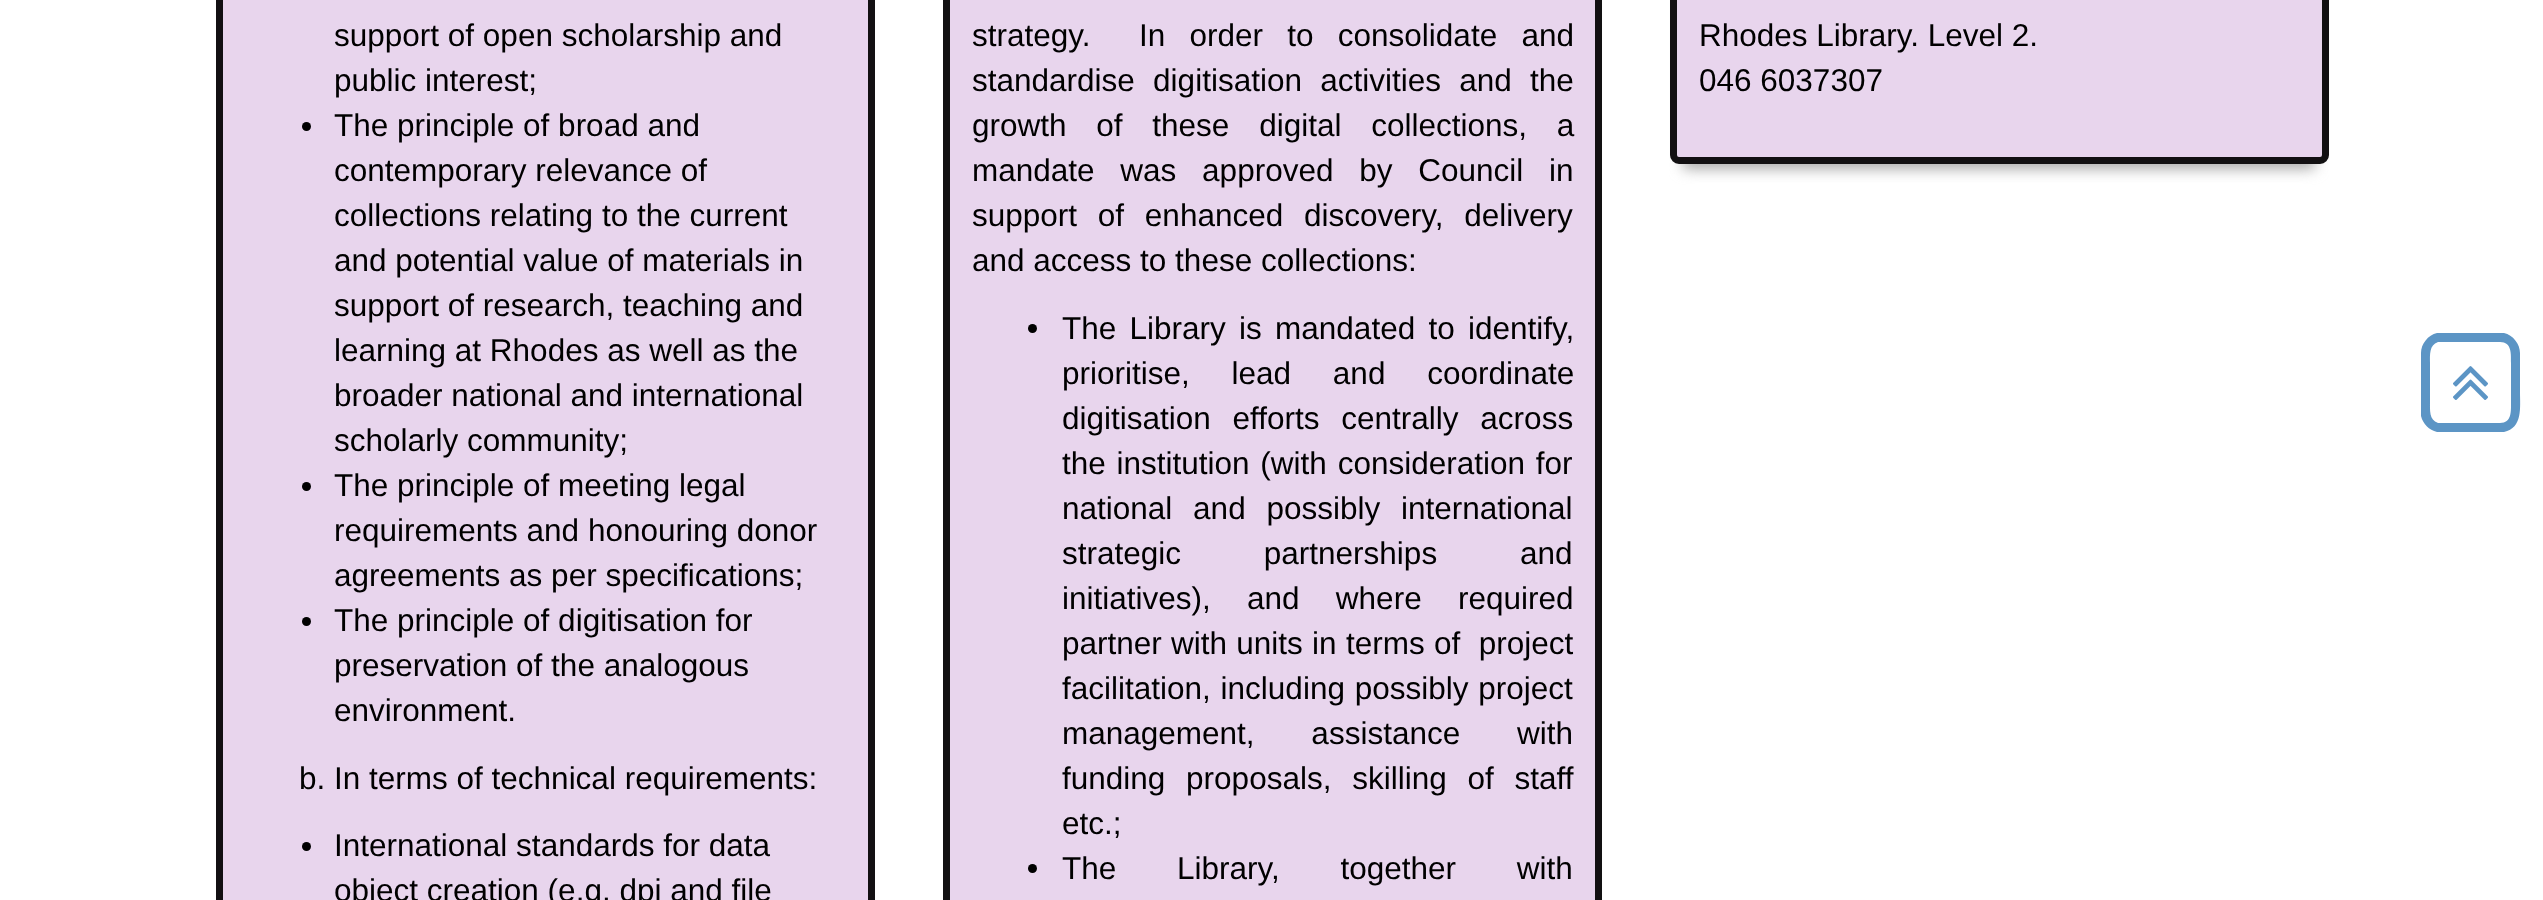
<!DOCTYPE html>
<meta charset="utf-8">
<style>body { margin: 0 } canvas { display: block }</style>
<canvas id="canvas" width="2543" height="900"></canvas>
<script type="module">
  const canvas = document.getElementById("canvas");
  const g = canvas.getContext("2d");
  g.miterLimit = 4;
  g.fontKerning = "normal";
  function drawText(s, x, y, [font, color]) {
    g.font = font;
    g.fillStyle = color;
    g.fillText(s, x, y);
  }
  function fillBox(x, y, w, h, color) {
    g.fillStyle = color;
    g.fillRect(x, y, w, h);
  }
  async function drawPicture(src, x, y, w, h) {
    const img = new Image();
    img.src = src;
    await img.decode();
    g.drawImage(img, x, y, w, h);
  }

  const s1 = ["31.5px Liberation Sans", "#000000"];

  fillBox(0, 0, 2543, 900, "#FFFFFF");
  g.fillStyle = "#AAAAAA";
  g.filter = "blur(7px)";
  g.beginPath();
  g.rect(230, -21, 632, 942);
  g.fill();
  g.filter = "none";
  g.fillStyle = "#E8D5ED";
  g.beginPath();
  g.rect(219.5, -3.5, 652, 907);
  g.fill();
  g.strokeStyle = "#121012";
  g.lineWidth = 7;
  g.stroke();
  drawText("support of open scholarship and", 334, 46, s1);
  drawText("public interest;", 334, 91, s1);
  g.beginPath();
  g.arc(306.5, 126.5, 4.5, 0, Math.PI * 2);
  g.fill();
  drawText("The principle of broad and", 334, 136, s1);
  drawText("contemporary relevance of", 334, 181, s1);
  drawText("collections relating to the current", 334, 226, s1);
  drawText("and potential value of materials in", 334, 271, s1);
  drawText("support of research, teaching and", 334, 316, s1);
  drawText("learning at Rhodes as well as the", 334, 361, s1);
  drawText("broader national and international", 334, 406, s1);
  drawText("scholarly community;", 334, 451, s1);
  g.beginPath();
  g.arc(306.5, 486.5, 4.5, 0, Math.PI * 2);
  g.fill();
  drawText("The principle of meeting legal", 334, 496, s1);
  drawText("requirements and honouring donor", 334, 541, s1);
  drawText("agreements as per specifications;", 334, 586, s1);
  g.beginPath();
  g.arc(306.5, 621.5, 4.5, 0, Math.PI * 2);
  g.fill();
  drawText("The principle of digitisation for", 334, 631, s1);
  drawText("preservation of the analogous", 334, 676, s1);
  drawText("environment.", 334, 721, s1);
  drawText("b. In terms of technical requirements:", 299, 789, s1);
  g.beginPath();
  g.arc(306.5, 846.5, 4.5, 0, Math.PI * 2);
  g.fill();
  drawText("International standards for data", 334, 856, s1);
  drawText("object creation (e.g. dpi and file", 334, 901, s1);
  g.fillStyle = "#AAAAAA";
  g.filter = "blur(7px)";
  g.beginPath();
  g.rect(956, -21, 633, 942);
  g.fill();
  g.filter = "none";
  g.fillStyle = "#E8D5ED";
  g.beginPath();
  g.rect(946.5, -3.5, 652, 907);
  g.fill();
  g.stroke();
  g.wordSpacing = "15.5px";
  drawText("strategy.  In order to consolidate and", 972, 46, s1);
  g.wordSpacing = "9.5px";
  drawText("standardise digitisation activities and the", 972, 91, s1);
  g.wordSpacing = "21px";
  drawText("growth of these digital collections, a", 972, 136, s1);
  g.wordSpacing = "17px";
  drawText("mandate was approved by Council in", 972, 181, s1);
  g.wordSpacing = "12px";
  drawText("support of enhanced discovery, delivery", 972, 226, s1);
  g.wordSpacing = "0px";
  drawText("and access to these collections:", 972, 271, s1);
  g.beginPath();
  g.arc(1032.5, 328.5, 4.5, 0, Math.PI * 2);
  g.fill();
  g.wordSpacing = "4.5px";
  drawText("The Library is mandated to identify,", 1062, 339, s1);
  g.wordSpacing = "33px";
  drawText("prioritise, lead and coordinate", 1062, 384, s1);
  g.wordSpacing = "13px";
  drawText("digitisation efforts centrally across", 1062, 429, s1);
  g.wordSpacing = "2px";
  drawText("the institution (with consideration for", 1062, 474, s1);
  g.wordSpacing = "12px";
  drawText("national and possibly international", 1062, 519, s1);
  g.wordSpacing = "74px";
  drawText("strategic partnerships and", 1062, 564, s1);
  g.wordSpacing = "27.5px";
  drawText("initiatives), and where required", 1062, 609, s1);
  g.wordSpacing = "0.5px";
  drawText("partner with units in terms of  project", 1062, 654, s1);
  g.wordSpacing = "1px";
  drawText("facilitation, including possibly project", 1062, 699, s1);
  g.wordSpacing = "48px";
  drawText("management, assistance with", 1062, 744, s1);
  g.wordSpacing = "12px";
  drawText("funding proposals, skilling of staff", 1062, 789, s1);
  g.wordSpacing = "0px";
  drawText("etc.;", 1062, 834, s1);
  g.beginPath();
  g.arc(1032.5, 868.5, 4.5, 0, Math.PI * 2);
  g.fill();
  g.wordSpacing = "52px";
  drawText("The Library, together with", 1062, 879, s1);
  g.fillStyle = "#AAAAAA";
  g.filter = "blur(7px)";
  g.beginPath();
  g.rect(1683, -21, 632, 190);
  g.fill();
  g.filter = "none";
  g.fillStyle = "#E8D5ED";
  g.beginPath();
  g.roundRect(1673.5, -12.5, 652, 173, 5.5);
  g.fill();
  g.stroke();
  g.wordSpacing = "0px";
  drawText("Rhodes Library. Level 2.", 1699, 46, s1);
  drawText("046 6037307", 1699, 91, s1);
  g.fillStyle = "#5C95C5";
  g.beginPath();
  g.moveTo(2500, 342);
  g.lineTo(2451, 342);
  g.lineTo(2438, 342);
  g.bezierCurveTo(2429, 345, 2430, 355, 2430, 363);
  g.lineTo(2430, 402);
  g.bezierCurveTo(2430, 410, 2429, 420, 2438, 423);
  g.lineTo(2451, 423);
  g.lineTo(2500, 423);
  g.bezierCurveTo(2512, 423, 2511, 411, 2511, 402);
  g.lineTo(2511, 363);
  g.bezierCurveTo(2511, 354, 2512, 342, 2500, 342);
  g.closePath();
  g.moveTo(2520, 353);
  g.lineTo(2520, 392);
  g.bezierCurveTo(2520, 407, 2523, 428, 2504, 432);
  g.lineTo(2470, 432);
  g.lineTo(2437, 432);
  g.bezierCurveTo(2429, 430, 2423, 424, 2421, 416);
  g.lineTo(2421, 353);
  g.bezierCurveTo(2421, 344, 2428, 335, 2437, 333);
  g.lineTo(2451, 333);
  g.lineTo(2504, 333);
  g.bezierCurveTo(2513, 335, 2520, 344, 2520, 353);
  g.closePath();
  g.fill();
  await drawPicture("pic1.png", 2453, 366, 35, 34);
</script>
